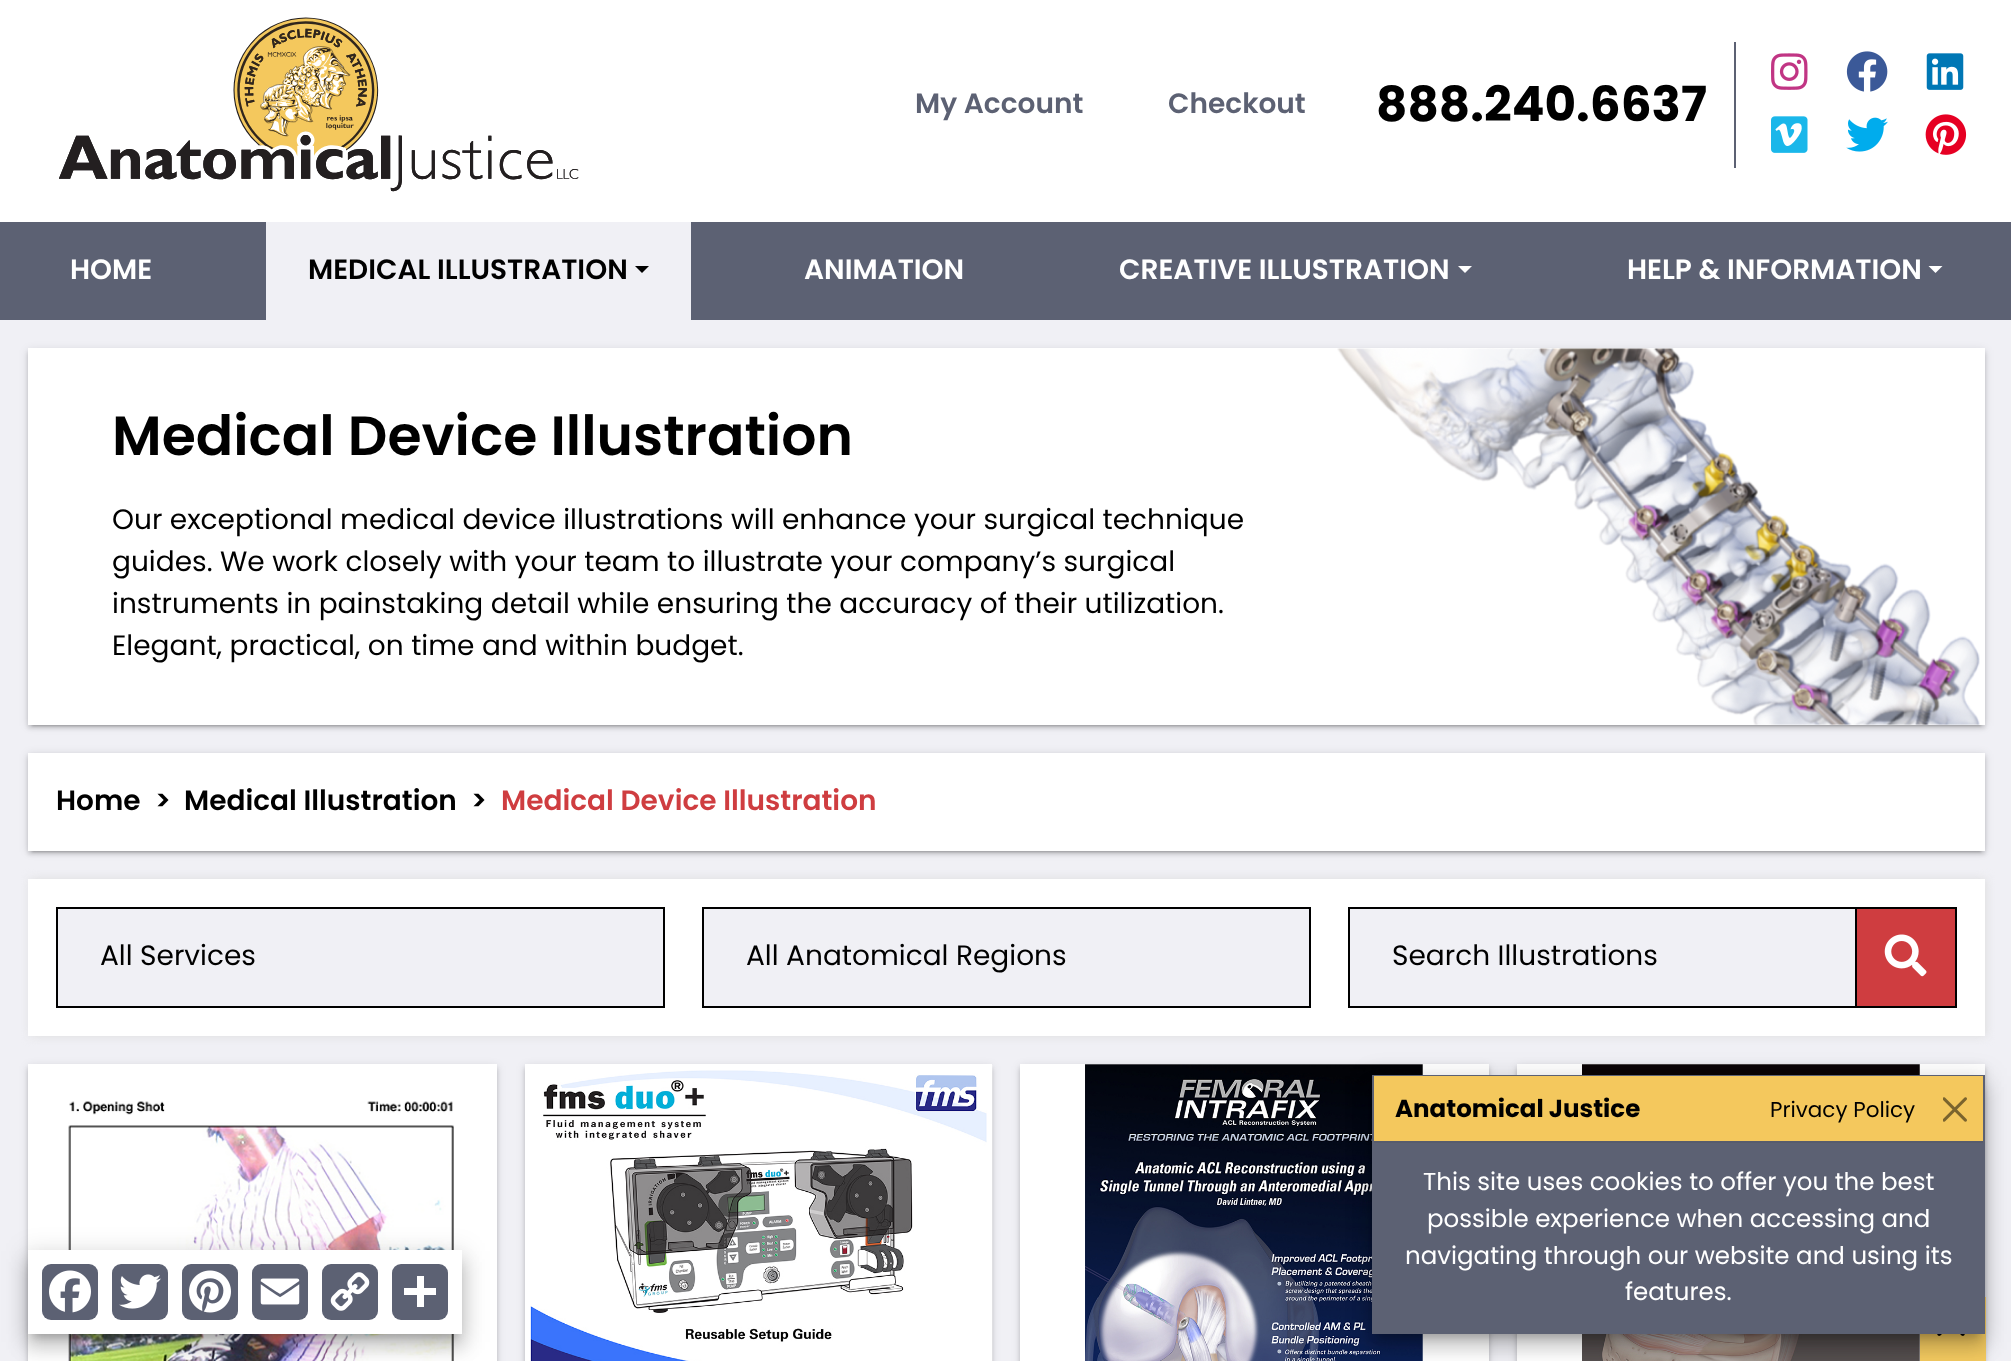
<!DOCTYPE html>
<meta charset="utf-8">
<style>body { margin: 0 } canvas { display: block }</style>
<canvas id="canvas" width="2011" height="1361"></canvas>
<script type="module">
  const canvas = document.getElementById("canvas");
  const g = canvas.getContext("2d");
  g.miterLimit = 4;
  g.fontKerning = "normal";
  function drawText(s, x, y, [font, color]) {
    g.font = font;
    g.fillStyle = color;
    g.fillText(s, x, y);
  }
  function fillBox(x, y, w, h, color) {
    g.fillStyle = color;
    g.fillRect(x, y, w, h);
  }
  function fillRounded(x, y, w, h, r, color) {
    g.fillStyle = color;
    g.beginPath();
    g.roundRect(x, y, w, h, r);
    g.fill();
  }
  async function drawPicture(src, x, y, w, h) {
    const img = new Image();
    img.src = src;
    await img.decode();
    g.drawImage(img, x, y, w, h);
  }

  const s1 = ["600 28px Poppins", "#5C6173"];
  const s2 = ["bold 48.5px Poppins", "#000000"];
  const s3 = ["600 28px Poppins", "#FFFFFF"];
  const s4 = ["600 28px Poppins", "#000000"];
  const s5 = ["600 55.25px Poppins", "#000000"];
  const s6 = ["28px Poppins", "#000000"];
  const s7 = ["600 28px Poppins", "#CF3D40"];
  const s8 = ["bold 24.5px Poppins", "#000000"];
  const s9 = ["21.5px Poppins", "#000000"];
  const s10 = ["24.5px Poppins", "#FFFFFF"];

  fillBox(0, 0, 2011, 1361, "#F0F0F5");
  fillBox(0, 0, 2011, 222, "#FFFFFF");
  await drawPicture("pic1.png", 59, 17, 520, 175);
  drawText("My Account", 915, 113, s1);
  drawText("Checkout", 1168, 113, s1);
  drawText("888.240.6637", 1376, 121, s2);
  fillBox(1734, 42, 2, 126, "#5C6173");
  await drawPicture("pic2.png", 1771, 53, 37, 37);
  await drawPicture("pic3.png", 1846, 51, 42, 41);
  await drawPicture("pic4.png", 1926, 53, 38, 37);
  await drawPicture("pic5.png", 1771, 116, 37, 37);
  await drawPicture("pic6.png", 1846, 117, 42, 35);
  await drawPicture("pic7.png", 1925, 114, 42, 41);
  fillBox(0, 222, 2011, 98, "#5C6173");
  drawText("HOME", 70, 279, s3);
  fillBox(266, 222, 425, 98, "#F0F0F5");
  drawText("MEDICAL ILLUSTRATION", 308, 279, s4);
  g.beginPath();
  g.moveTo(635, 266);
  g.lineTo(649, 266);
  g.lineTo(642, 273);
  g.closePath();
  g.fill();
  drawText("ANIMATION", 804, 279, s3);
  drawText("CREATIVE ILLUSTRATION", 1119, 279, s3);
  g.beginPath();
  g.moveTo(1458, 266);
  g.lineTo(1472, 266);
  g.lineTo(1465, 273);
  g.closePath();
  g.fill();
  drawText("HELP & INFORMATION", 1627, 279, s3);
  g.beginPath();
  g.moveTo(1928.5, 266);
  g.lineTo(1942.5, 266);
  g.lineTo(1935.5, 273);
  g.closePath();
  g.fill();
  g.fillStyle = "rgba(0, 0, 0, 0.12)";
  g.filter = "blur(4.5px)";
  g.beginPath();
  g.rect(28, 350, 1957, 376);
  g.fill();
  g.filter = "none";
  g.fillStyle = "rgba(0, 0, 0, 0.14)";
  g.filter = "blur(2px)";
  g.beginPath();
  g.rect(28, 352, 1957, 376);
  g.fill();
  g.filter = "none";
  g.fillStyle = "rgba(0, 0, 0, 0.2)";
  g.filter = "blur(1px)";
  g.beginPath();
  g.rect(32, 357, 1949, 369);
  g.fill();
  g.filter = "none";
  fillBox(28, 348, 1957, 377, "#FFFFFF");
  drawText("Medical Device Illustration", 112, 455, s5);
  drawText("Our exceptional medical device illustrations will enhance your surgical technique", 112, 529, s6);
  drawText("guides. We work closely with your team to illustrate your company’s surgical", 112, 571, s6);
  drawText("instruments in painstaking detail while ensuring the accuracy of their utilization.", 112, 613, s6);
  drawText("Elegant, practical, on time and within budget.", 112, 655, s6);
  await drawPicture("pic8.png", 1337, 348, 643, 377);
  g.fillStyle = "rgba(0, 0, 0, 0.12)";
  g.filter = "blur(4.5px)";
  g.beginPath();
  g.rect(28, 754, 1957, 98);
  g.fill();
  g.filter = "none";
  g.fillStyle = "rgba(0, 0, 0, 0.14)";
  g.filter = "blur(2px)";
  g.beginPath();
  g.rect(28, 756, 1957, 98);
  g.fill();
  g.filter = "none";
  g.fillStyle = "rgba(0, 0, 0, 0.2)";
  g.filter = "blur(1px)";
  g.beginPath();
  g.rect(32, 761, 1949, 91);
  g.fill();
  g.filter = "none";
  fillBox(28, 753, 1957, 98, "#FFFFFF");
  drawText("Home", 56, 810, s4);
  drawText(">", 155, 810, s4);
  drawText("Medical Illustration", 184, 810, s4);
  drawText(">", 471, 810, s4);
  drawText("Medical Device Illustration", 501, 810, s7);
  g.fillStyle = "#DDDDDD";
  g.filter = "blur(5px)";
  g.beginPath();
  g.rect(30, 879, 1956, 157);
  g.fill();
  g.filter = "none";
  fillBox(28, 879, 1957, 157, "#FFFFFF");
  g.fillStyle = "#F0F0F5";
  g.beginPath();
  g.rect(57, 908, 607, 99);
  g.fill();
  g.strokeStyle = "#000000";
  g.lineWidth = 2;
  g.stroke();
  drawText("All Services", 100, 965, s6);
  g.fillStyle = "#F0F0F5";
  g.beginPath();
  g.rect(703, 908, 607, 99);
  g.fill();
  g.stroke();
  drawText("All Anatomical Regions", 746, 965, s6);
  g.fillStyle = "#F0F0F5";
  g.beginPath();
  g.rect(1349, 908, 507, 99);
  g.fill();
  g.stroke();
  drawText("Search Illustrations", 1392, 965, s6);
  g.fillStyle = "#CF3D40";
  g.beginPath();
  g.rect(1856, 908, 100, 99);
  g.fill();
  g.stroke();
  await drawPicture("pic9.png", 1884, 934, 43, 43);
  g.fillStyle = "rgba(0, 0, 0, 0.12)";
  g.filter = "blur(4.5px)";
  g.beginPath();
  g.rect(28, 1066, 469, 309);
  g.fill();
  g.filter = "none";
  g.fillStyle = "rgba(0, 0, 0, 0.14)";
  g.filter = "blur(2px)";
  g.beginPath();
  g.rect(28, 1068, 469, 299);
  g.fill();
  g.filter = "none";
  fillBox(28, 1064, 469, 297, "#FFFFFF");
  await drawPicture("pic10.png", 68, 1101, 386, 260);
  g.fillStyle = "rgba(0, 0, 0, 0.12)";
  g.filter = "blur(4.5px)";
  g.beginPath();
  g.rect(525, 1066, 467, 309);
  g.fill();
  g.filter = "none";
  g.fillStyle = "rgba(0, 0, 0, 0.14)";
  g.filter = "blur(2px)";
  g.beginPath();
  g.rect(525, 1068, 467, 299);
  g.fill();
  g.filter = "none";
  fillBox(525, 1064, 467, 297, "#FFFFFF");
  await drawPicture("pic11.png", 530, 1065, 463, 296);
  g.fillStyle = "rgba(0, 0, 0, 0.12)";
  g.filter = "blur(4.5px)";
  g.beginPath();
  g.rect(1020, 1066, 469, 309);
  g.fill();
  g.filter = "none";
  g.fillStyle = "rgba(0, 0, 0, 0.14)";
  g.filter = "blur(2px)";
  g.beginPath();
  g.rect(1020, 1068, 469, 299);
  g.fill();
  g.filter = "none";
  fillBox(1020, 1064, 469, 297, "#FFFFFF");
  await drawPicture("pic12.png", 1085, 1064, 338, 297);
  g.fillStyle = "rgba(0, 0, 0, 0.12)";
  g.filter = "blur(4.5px)";
  g.beginPath();
  g.rect(1517, 1066, 468, 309);
  g.fill();
  g.filter = "none";
  g.fillStyle = "rgba(0, 0, 0, 0.14)";
  g.filter = "blur(2px)";
  g.beginPath();
  g.rect(1517, 1068, 468, 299);
  g.fill();
  g.filter = "none";
  fillBox(1517, 1064, 468, 297, "#FFFFFF");
  await drawPicture("pic13.png", 1582, 1064, 338, 297);
  g.fillStyle = "rgba(0, 0, 0, 0.12)";
  g.filter = "blur(12px)";
  g.beginPath();
  g.rect(25, 1251, 441, 91);
  g.fill();
  g.filter = "none";
  g.fillStyle = "rgba(0, 0, 0, 0.14)";
  g.filter = "blur(9px)";
  g.beginPath();
  g.rect(26, 1262, 438, 87);
  g.fill();
  g.filter = "none";
  g.fillStyle = "rgba(0, 0, 0, 0.2)";
  g.filter = "blur(4.5px)";
  g.beginPath();
  g.rect(33, 1264, 424, 73);
  g.fill();
  g.filter = "none";
  fillBox(28, 1250, 434, 84, "#FFFFFF");
  fillRounded(42, 1264, 56, 56, 9, "#5C6173");
  await drawPicture("pic14.png", 49, 1270, 42, 43);
  fillRounded(112, 1264, 56, 56, 9, "#5C6173");
  await drawPicture("pic15.png", 119, 1274, 42, 35);
  fillRounded(182, 1264, 56, 56, 9, "#5C6173");
  await drawPicture("pic16.png", 189, 1270, 42, 43);
  fillRounded(252, 1264, 56, 56, 9, "#5C6173");
  await drawPicture("pic17.png", 260, 1278, 40, 27);
  fillRounded(322, 1264, 56, 56, 9, "#5C6173");
  await drawPicture("pic18.png", 330, 1272, 40, 39);
  fillRounded(392, 1264, 56, 56, 9, "#5C6173");
  fillBox(417, 1276, 7, 31, "#FFFFFF");
  fillBox(404, 1288, 32, 7, "#FFFFFF");
  fillBox(1920, 1297, 66, 64, "#F3CA60");
  await drawPicture("pic20.png", 1937, 1334, 28, 2);
  g.fillStyle = "rgba(0, 0, 0, 0.12)";
  g.filter = "blur(12px)";
  g.beginPath();
  g.rect(1369, 1076, 619, 266);
  g.fill();
  g.filter = "none";
  g.fillStyle = "rgba(0, 0, 0, 0.14)";
  g.filter = "blur(9px)";
  g.beginPath();
  g.rect(1370, 1087, 616, 262);
  g.fill();
  g.filter = "none";
  g.fillStyle = "rgba(0, 0, 0, 0.2)";
  g.filter = "blur(4.5px)";
  g.beginPath();
  g.rect(1377, 1089, 602, 248);
  g.fill();
  g.filter = "none";
  fillBox(1374, 1143, 609, 189, "#5C6173");
  g.strokeStyle = "#5C6173";
  g.strokeRect(1373, 1076, 611, 257);
  fillBox(1374, 1076, 609, 65, "#F4C85D");
  fillBox(1374, 1141, 609, 2, "#575C6D");
  drawText("Anatomical Justice", 1395, 1117, s8);
  drawText("Privacy Policy", 1770, 1117, s9);
  await drawPicture("pic19.png", 1943, 1097, 24, 25);
  drawText("This site uses cookies to offer you the best", 1423, 1190, s10);
  drawText("possible experience when accessing and", 1427, 1227, s10);
  drawText("navigating through our website and using its", 1405, 1264, s10);
  drawText("features.", 1625, 1300, s10);
</script>
